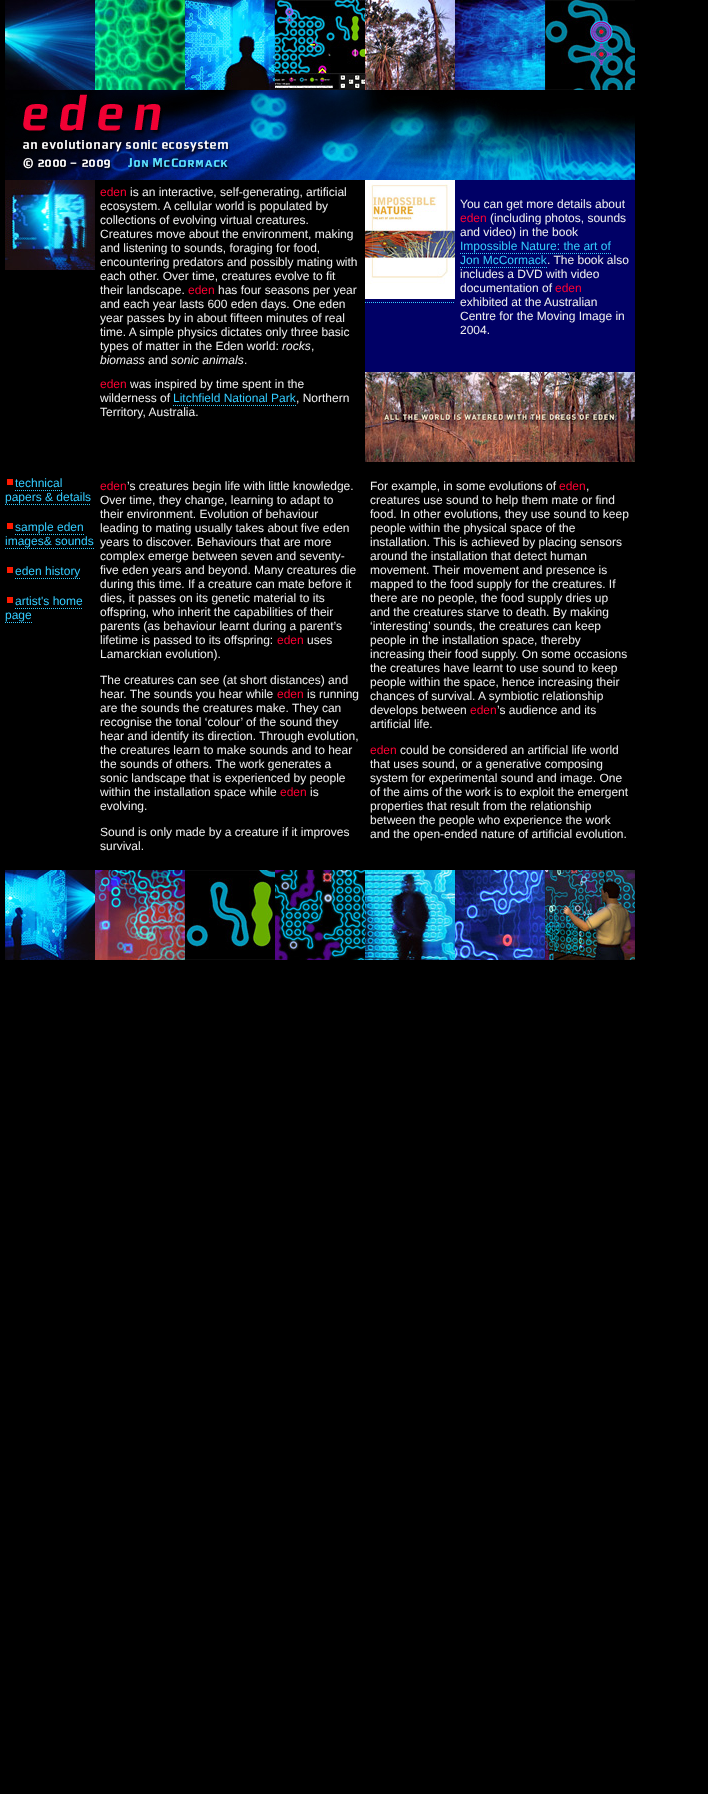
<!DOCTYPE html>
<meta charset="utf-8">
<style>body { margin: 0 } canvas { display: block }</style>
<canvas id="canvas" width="708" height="1794"></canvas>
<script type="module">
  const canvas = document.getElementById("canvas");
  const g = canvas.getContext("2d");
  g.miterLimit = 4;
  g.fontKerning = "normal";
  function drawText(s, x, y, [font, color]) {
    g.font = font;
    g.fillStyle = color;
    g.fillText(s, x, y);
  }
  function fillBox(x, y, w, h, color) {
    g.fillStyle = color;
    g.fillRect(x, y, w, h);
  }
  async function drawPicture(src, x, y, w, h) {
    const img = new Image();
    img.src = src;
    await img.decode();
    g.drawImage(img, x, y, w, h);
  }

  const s1 = ["12px Liberation Sans", "#FF0033"];
  const s2 = ["12px Liberation Sans", "#EEEEEE"];
  const s3 = ["italic 12px Liberation Sans", "#EEEEEE"];
  const s4 = ["12px Liberation Sans", "#33CCFF"];

  fillBox(0, 0, 708, 1794, "#000000");
  await drawPicture("pic1.png", 5, 0, 90, 90);
  await drawPicture("pic2.png", 95, 0, 90, 90);
  await drawPicture("pic3.png", 185, 0, 90, 90);
  await drawPicture("pic4.png", 275, 0, 90, 90);
  await drawPicture("pic5.png", 365, 0, 90, 90);
  await drawPicture("pic6.png", 455, 0, 90, 90);
  await drawPicture("pic7.png", 545, 0, 90, 90);
  await drawPicture("pic8.png", 5, 90, 630, 90);
  await drawPicture("pic9.png", 5, 180, 90, 90);
  drawText("eden", 100, 196, s1);
  drawText("is an interactive, self-generating, artificial", 130, 196, s2);
  drawText("ecosystem. A cellular world is populated by", 100, 210, s2);
  drawText("collections of evolving virtual creatures.", 100, 224, s2);
  drawText("Creatures move about the environment, making", 100, 238, s2);
  drawText("and listening to sounds, foraging for food,", 100, 252, s2);
  drawText("encountering predators and possibly mating with", 100, 266, s2);
  drawText("each other. Over time, creatures evolve to fit", 100, 280, s2);
  drawText("their landscape.", 100, 294, s2);
  drawText("eden", 188, 294, s1);
  drawText("has four seasons per year", 218, 294, s2);
  drawText("and each year lasts 600 eden days. One eden", 100, 308, s2);
  drawText("year passes by in about fifteen minutes of real", 100, 322, s2);
  drawText("time. A simple physics dictates only three basic", 100, 336, s2);
  drawText("types of matter in the Eden world:", 100, 350, s2);
  drawText("rocks", 282, 350, s3);
  drawText(",", 311, 350, s2);
  drawText("biomass", 100, 364, s3);
  drawText("and", 148, 364, s2);
  drawText("sonic animals", 171, 364, s3);
  drawText(".", 244, 364, s2);
  fillBox(365, 299, 90, 73, "#000066");
  await drawPicture("pic10.png", 365, 180, 90, 119);
  g.beginPath();
  g.moveTo(365, 302.5);
  g.lineTo(455, 302.5);
  g.strokeStyle = "#33CCFF";
  g.setLineDash([1, 1]);
  g.stroke();
  fillBox(455, 180, 180, 192, "#000066");
  drawText("You can get more details about", 460, 208, s2);
  drawText("eden", 460, 222, s1);
  drawText("(including photos, sounds", 490, 222, s2);
  drawText("and video) in the book", 460, 236, s2);
  drawText("Impossible Nature: the art of", 460, 250, s4);
  g.beginPath();
  g.moveTo(460, 253.5);
  g.lineTo(611, 253.5);
  g.stroke();
  drawText("Jon McCormack", 460, 264, s4);
  g.beginPath();
  g.moveTo(460, 267.5);
  g.lineTo(547, 267.5);
  g.stroke();
  drawText(". The book also", 547, 264, s2);
  drawText("includes a DVD with video", 460, 278, s2);
  drawText("documentation of", 460, 292, s2);
  drawText("eden", 555, 292, s1);
  drawText("exhibited at the Australian", 460, 306, s2);
  drawText("Centre for the Moving Image in", 460, 320, s2);
  drawText("2004.", 460, 334, s2);
  drawText("eden", 100, 388, s1);
  drawText("was inspired by time spent in the", 130, 388, s2);
  drawText("wilderness of", 100, 402, s2);
  drawText("Litchfield National Park", 173, 402, s4);
  g.beginPath();
  g.moveTo(173, 405.5);
  g.lineTo(296, 405.5);
  g.stroke();
  drawText(", Northern", 296, 402, s2);
  drawText("Territory, Australia.", 100, 416, s2);
  await drawPicture("pic11.png", 365, 372, 270, 90);
  fillBox(7, 479, 6, 6, "#FF1A00");
  drawText("technical", 15, 487, s4);
  g.beginPath();
  g.moveTo(15, 490.5);
  g.lineTo(62, 490.5);
  g.stroke();
  drawText("papers & details", 5, 501, s4);
  g.beginPath();
  g.moveTo(5, 504.5);
  g.lineTo(91, 504.5);
  g.stroke();
  fillBox(7, 523, 6, 6, "#FF1A00");
  drawText("sample eden", 15, 531, s4);
  g.beginPath();
  g.moveTo(15, 534.5);
  g.lineTo(84, 534.5);
  g.stroke();
  drawText("images& sounds", 5, 545, s4);
  g.beginPath();
  g.moveTo(5, 548.5);
  g.lineTo(94, 548.5);
  g.stroke();
  fillBox(7, 567, 6, 6, "#FF1A00");
  drawText("eden history", 15, 575, s4);
  g.beginPath();
  g.moveTo(15, 578.5);
  g.lineTo(80, 578.5);
  g.stroke();
  fillBox(7, 597, 6, 6, "#FF1A00");
  drawText("artist's home", 15, 605, s4);
  g.beginPath();
  g.moveTo(15, 608.5);
  g.lineTo(83, 608.5);
  g.stroke();
  drawText("page", 5, 619, s4);
  g.beginPath();
  g.moveTo(5, 622.5);
  g.lineTo(32, 622.5);
  g.stroke();
  drawText("eden", 100, 490, s1);
  drawText("’s creatures begin life with little knowledge.", 127, 490, s2);
  drawText("Over time, they change, learning to adapt to", 100, 504, s2);
  drawText("their environment. Evolution of behaviour", 100, 518, s2);
  drawText("leading to mating usually takes about five eden", 100, 532, s2);
  drawText("years to discover. Behaviours that are more", 100, 546, s2);
  drawText("complex emerge between seven and seventy-", 100, 560, s2);
  drawText("five eden years and beyond. Many creatures die", 100, 574, s2);
  drawText("during this time. If a creature can mate before it", 100, 588, s2);
  drawText("dies, it passes on its genetic material to its", 100, 602, s2);
  drawText("offspring, who inherit the capabilities of their", 100, 616, s2);
  drawText("parents (as behaviour learnt during a parent’s", 100, 630, s2);
  drawText("lifetime is passed to its offspring:", 100, 644, s2);
  drawText("eden", 277, 644, s1);
  drawText("uses", 307, 644, s2);
  drawText("Lamarckian evolution).", 100, 658, s2);
  drawText("The creatures can see (at short distances) and", 100, 684, s2);
  drawText("hear. The sounds you hear while", 100, 698, s2);
  drawText("eden", 277, 698, s1);
  drawText("is running", 307, 698, s2);
  drawText("are the sounds the creatures make. They can", 100, 712, s2);
  drawText("recognise the tonal ‘colour’ of the sound they", 100, 726, s2);
  drawText("hear and identify its direction. Through evolution,", 100, 740, s2);
  drawText("the creatures learn to make sounds and to hear", 100, 754, s2);
  drawText("the sounds of others. The work generates a", 100, 768, s2);
  drawText("sonic landscape that is experienced by people", 100, 782, s2);
  drawText("within the installation space while", 100, 796, s2);
  drawText("eden", 280, 796, s1);
  drawText("is", 310, 796, s2);
  drawText("evolving.", 100, 810, s2);
  drawText("Sound is only made by a creature if it improves", 100, 836, s2);
  drawText("survival.", 100, 850, s2);
  drawText("For example, in some evolutions of", 370, 490, s2);
  drawText("eden", 559, 490, s1);
  drawText(",", 586, 490, s2);
  drawText("creatures use sound to help them mate or find", 370, 504, s2);
  drawText("food. In other evolutions, they use sound to keep", 370, 518, s2);
  drawText("people within the physical space of the", 370, 532, s2);
  drawText("installation. This is achieved by placing sensors", 370, 546, s2);
  drawText("around the installation that detect human", 370, 560, s2);
  drawText("movement. Their movement and presence is", 370, 574, s2);
  drawText("mapped to the food supply for the creatures. If", 370, 588, s2);
  drawText("there are no people, the food supply dries up", 370, 602, s2);
  drawText("and the creatures starve to death. By making", 370, 616, s2);
  drawText("‘interesting’ sounds, the creatures can keep", 370, 630, s2);
  drawText("people in the installation space, thereby", 370, 644, s2);
  drawText("increasing their food supply. On some occasions", 370, 658, s2);
  drawText("the creatures have learnt to use sound to keep", 370, 672, s2);
  drawText("people within the space, hence increasing their", 370, 686, s2);
  drawText("chances of survival. A symbiotic relationship", 370, 700, s2);
  drawText("develops between", 370, 714, s2);
  drawText("eden", 470, 714, s1);
  drawText("’s audience and its", 497, 714, s2);
  drawText("artificial life.", 370, 728, s2);
  drawText("eden", 370, 754, s1);
  drawText("could be considered an artificial life world", 400, 754, s2);
  drawText("that uses sound, or a generative composing", 370, 768, s2);
  drawText("system for experimental sound and image. One", 370, 782, s2);
  drawText("of the aims of the work is to exploit the emergent", 370, 796, s2);
  drawText("properties that result from the relationship", 370, 810, s2);
  drawText("between the people who experience the work", 370, 824, s2);
  drawText("and the open-ended nature of artificial evolution.", 370, 838, s2);
  await drawPicture("pic12.png", 5, 870, 90, 90);
  await drawPicture("pic13.png", 95, 870, 90, 90);
  await drawPicture("pic14.png", 185, 870, 90, 90);
  await drawPicture("pic15.png", 275, 870, 90, 90);
  await drawPicture("pic16.png", 365, 870, 90, 90);
  await drawPicture("pic17.png", 455, 870, 90, 90);
  await drawPicture("pic18.png", 545, 870, 90, 90);
</script>
